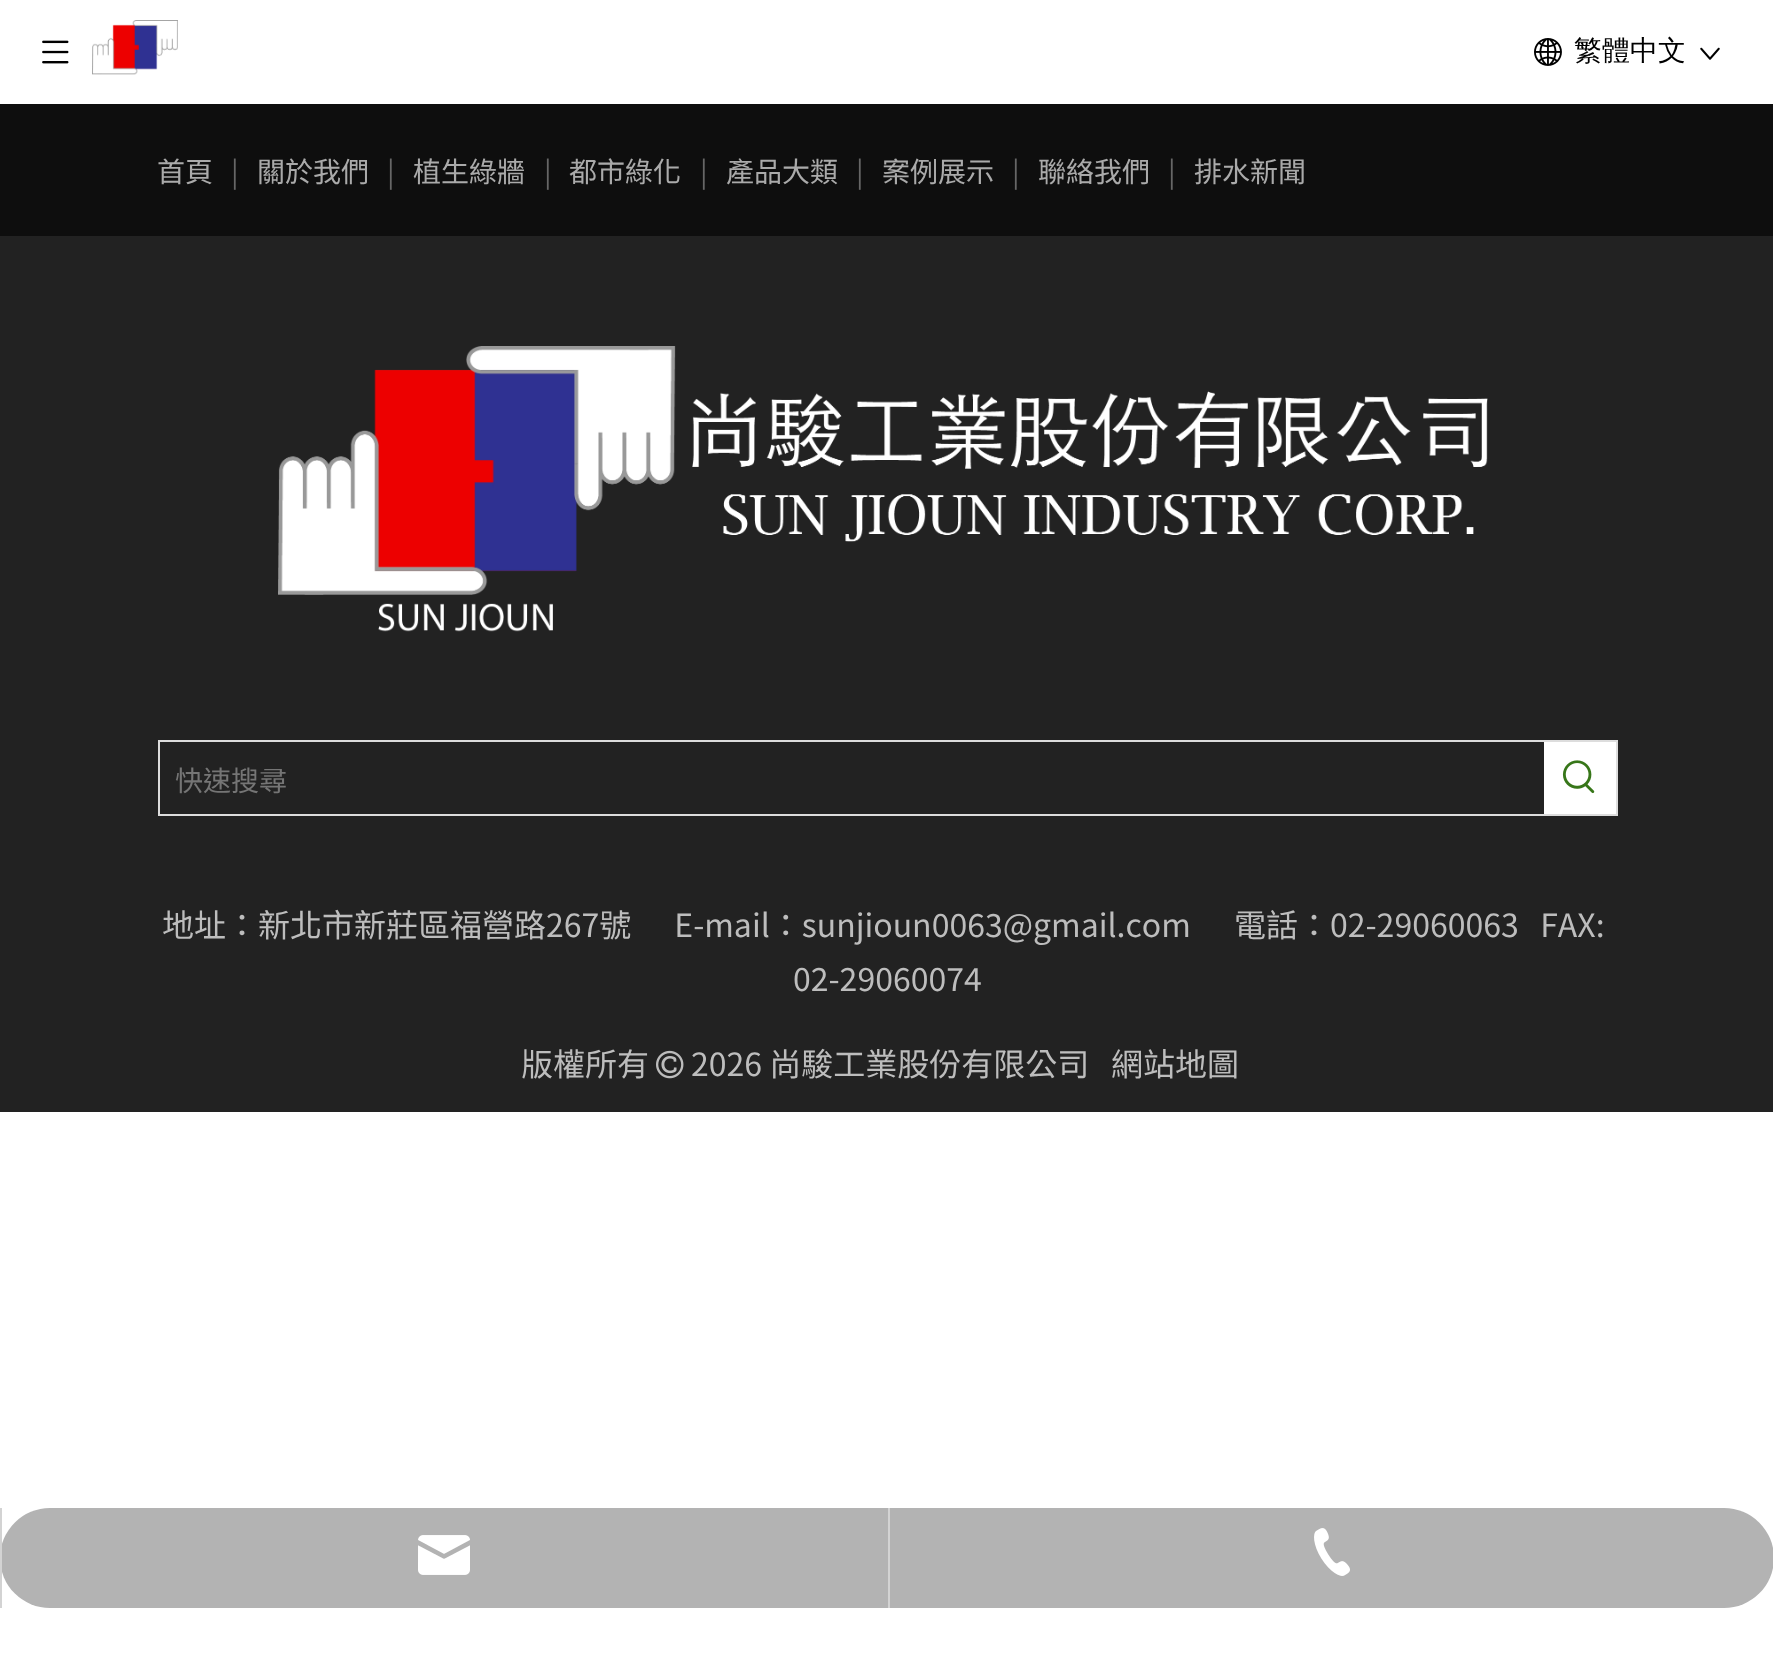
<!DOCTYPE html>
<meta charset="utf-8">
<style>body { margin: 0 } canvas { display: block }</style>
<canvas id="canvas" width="1773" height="1664"></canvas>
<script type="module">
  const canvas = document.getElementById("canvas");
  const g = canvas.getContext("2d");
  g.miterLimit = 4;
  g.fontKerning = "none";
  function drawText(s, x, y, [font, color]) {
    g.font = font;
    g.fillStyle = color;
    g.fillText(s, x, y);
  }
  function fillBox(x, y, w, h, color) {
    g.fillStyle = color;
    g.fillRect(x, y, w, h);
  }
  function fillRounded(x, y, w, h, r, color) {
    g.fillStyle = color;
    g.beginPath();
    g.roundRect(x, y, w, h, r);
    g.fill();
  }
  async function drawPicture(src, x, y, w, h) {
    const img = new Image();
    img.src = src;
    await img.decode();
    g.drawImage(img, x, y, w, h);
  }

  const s1 = ["500 28px WenQuanYi Zen Hei", "#000000"];
  const s2 = ["28px Noto Sans TC", "#AAAAAA"];
  const s3 = ["28px Noto Sans TC", "#666666"];
  const s4 = ["28px Noto Sans TC", "#757575"];
  const s5 = ["32px Noto Sans TC", "#BDBDBD"];

  fillBox(0, 0, 1773, 1664, "#FFFFFF");
  await drawPicture("pic1.png", 42, 40, 27, 24);
  await drawPicture("pic2.png", 92, 20, 86, 55);
  await drawPicture("pic3.png", 1534, 38, 28, 28);
  drawText("繁體中文", 1574, 60, s1);
  await drawPicture("pic4.png", 1700, 47, 20, 13);
  fillBox(0, 104, 1773, 132, "#0E0E0E");
  drawText("首頁", 157, 182, s2);
  drawText("|", 231, 182, s3);
  drawText("關於我們", 257, 182, s2);
  drawText("|", 387, 182, s3);
  drawText("植生綠牆", 413, 182, s2);
  drawText("|", 544, 182, s3);
  drawText("都市綠化", 569, 182, s2);
  drawText("|", 700, 182, s3);
  drawText("產品大類", 726, 182, s2);
  drawText("|", 856, 182, s3);
  drawText("案例展示", 882, 182, s2);
  drawText("|", 1012, 182, s3);
  drawText("聯絡我們", 1038, 182, s2);
  drawText("|", 1168, 182, s3);
  drawText("排水新聞", 1194, 182, s2);
  fillBox(0, 236, 1773, 876, "#222222");
  await drawPicture("pic5.png", 278, 346, 1210, 286);
  g.strokeStyle = "#DDDDDD";
  g.lineWidth = 2;
  g.strokeRect(159, 741, 1458, 74);
  drawText("快速搜尋", 175, 791, s4);
  fillBox(1544, 742, 72, 72, "#FFFFFF");
  await drawPicture("pic6.png", 1562, 760, 33, 34);
  drawText("地址：新北市新莊區福營路267號      E-mail：sunjioun0063@gmail.com", 162, 937, s5);
  drawText("電話：02-29060063   FAX:", 1234, 937, s5);
  drawText("02-29060074", 793, 991, s5);
  drawText("版權所有", 521, 1076, s5);
  await drawPicture("pic7.png", 656, 1050, 28, 29);
  drawText("2026 尚駿工業股份有限公司", 691, 1076, s5);
  drawText("網站地圖", 1111, 1076, s5);
  fillRounded(0, 1508, 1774, 100, 50, "#B3B3B3");
  fillBox(0, 1508, 2, 100, "#D3D3D3");
  await drawPicture("pic8.png", 418, 1535, 52, 40);
  fillBox(888, 1508, 2, 100, "#D3D3D3");
  await drawPicture("pic9.png", 1314, 1528, 36, 48);
</script>
